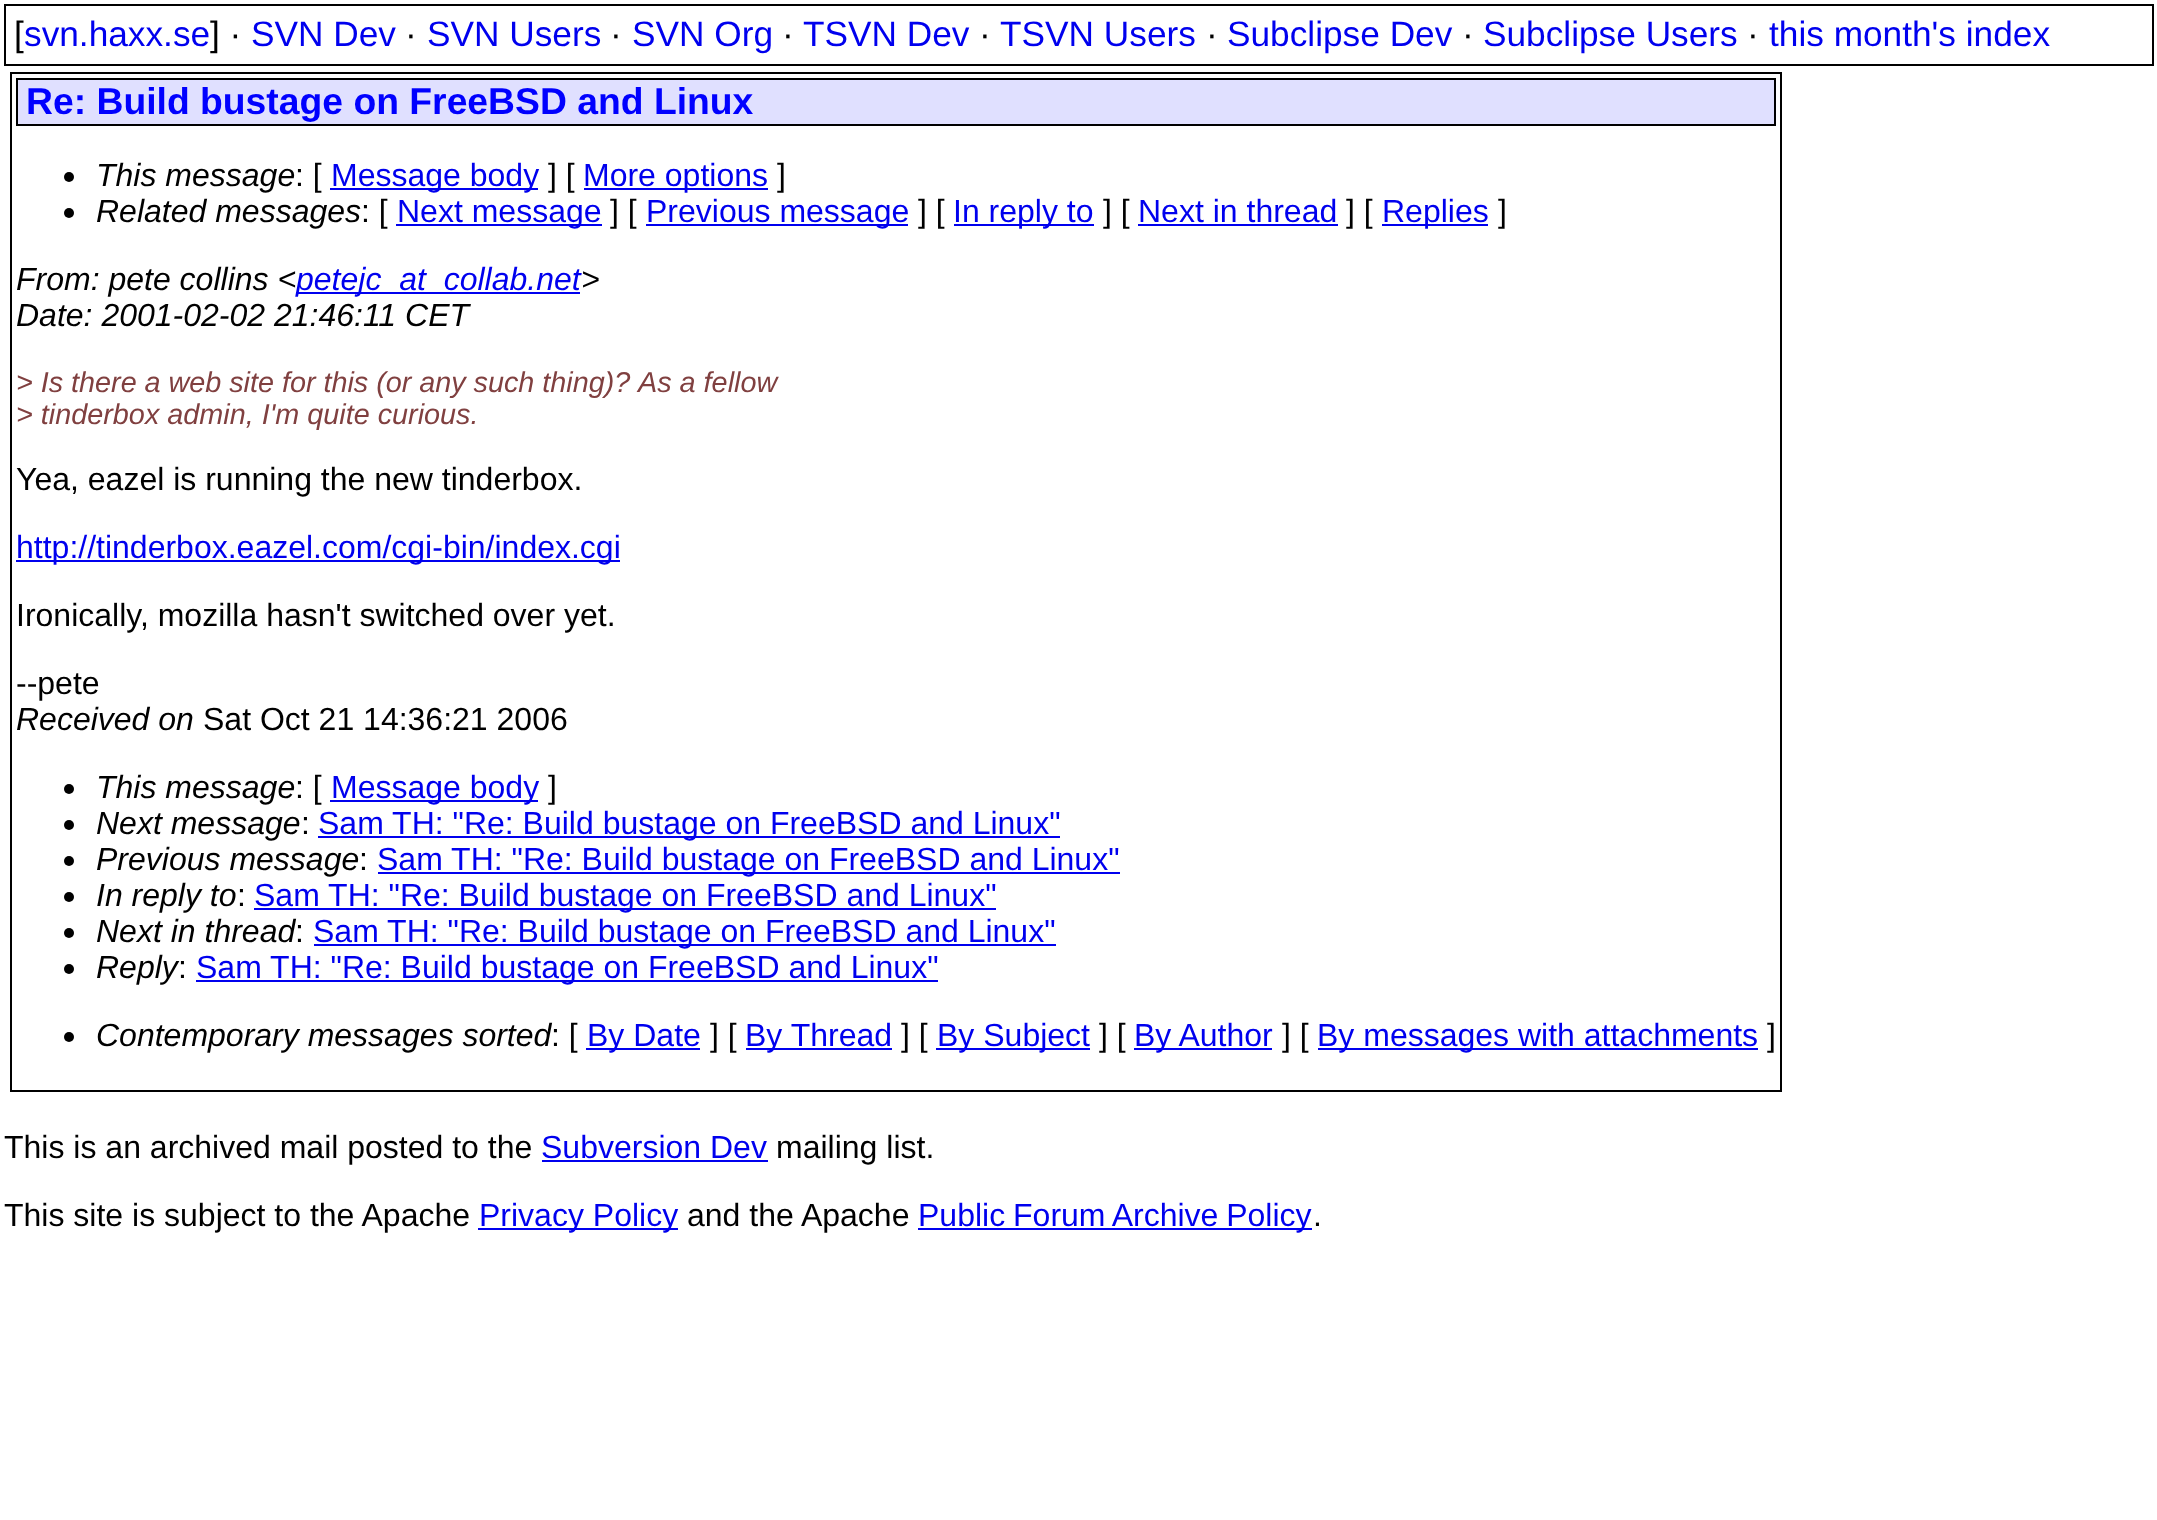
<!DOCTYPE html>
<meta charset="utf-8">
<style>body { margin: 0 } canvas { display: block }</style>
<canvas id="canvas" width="2157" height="1520"></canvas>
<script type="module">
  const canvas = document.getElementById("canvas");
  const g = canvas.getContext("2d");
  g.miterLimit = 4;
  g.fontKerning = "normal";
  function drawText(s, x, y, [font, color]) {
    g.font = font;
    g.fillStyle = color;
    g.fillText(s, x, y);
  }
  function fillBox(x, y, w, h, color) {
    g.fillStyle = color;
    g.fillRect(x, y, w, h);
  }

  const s1 = ["35.25px Liberation Sans", "#000000"];
  const s2 = ["35.25px Liberation Sans", "#0000EE"];
  const s3 = ["bold 37.3px Liberation Sans", "#0000FF"];
  const s4 = ["italic 32px Liberation Sans", "#000000"];
  const s5 = ["32px Liberation Sans", "#000000"];
  const s6 = ["32px Liberation Sans", "#0000EE"];
  const s7 = ["italic 32px Liberation Sans", "#0000EE"];
  const s8 = ["italic 28.8px Liberation Sans", "#804040"];

  fillBox(0, 0, 2157, 1520, "#FFFFFF");
  g.strokeStyle = "#000000";
  g.lineWidth = 2;
  g.strokeRect(5, 5, 2148, 60);
  drawText("[", 14, 46, s1);
  drawText("svn.haxx.se", 24, 46, s2);
  drawText("] ·", 210, 46, s1);
  drawText("SVN Dev", 251, 46, s2);
  drawText("·", 405, 46, s1);
  drawText("SVN Users", 427, 46, s2);
  drawText("·", 610, 46, s1);
  drawText("SVN Org", 632, 46, s2);
  drawText("·", 782, 46, s1);
  drawText("TSVN Dev", 803, 46, s2);
  drawText("·", 979, 46, s1);
  drawText("TSVN Users", 1000, 46, s2);
  drawText("·", 1206, 46, s1);
  drawText("Subclipse Dev", 1227, 46, s2);
  drawText("·", 1462, 46, s1);
  drawText("Subclipse Users", 1483, 46, s2);
  drawText("·", 1747, 46, s1);
  drawText("this month's index", 1769, 46, s2);
  g.strokeRect(11, 73, 1770, 1018);
  g.fillStyle = "#E0E0FF";
  g.beginPath();
  g.rect(17, 79, 1758, 46);
  g.fill();
  g.stroke();
  drawText("Re: Build bustage on FreeBSD and Linux", 26, 114, s3);
  g.fillStyle = "#000000";
  g.beginPath();
  g.arc(69, 177, 5, 0, Math.PI * 2);
  g.fill();
  drawText("This message", 96, 186, s4);
  drawText(": [", 295, 186, s5);
  fillBox(330, 188, 208, 2, "#0000EE");
  drawText("Message body", 331, 186, s6);
  drawText("] [", 548, 186, s5);
  fillBox(584, 188, 184, 2, "#0000EE");
  drawText("More options", 583, 186, s6);
  drawText("]", 777, 186, s5);
  g.beginPath();
  g.arc(69, 213, 5, 0, Math.PI * 2);
  g.fill();
  drawText("Related messages", 96, 222, s4);
  drawText(": [", 361, 222, s5);
  fillBox(396, 224, 206, 2, "#0000EE");
  drawText("Next message", 397, 222, s6);
  drawText("] [", 610, 222, s5);
  fillBox(646, 224, 262, 2, "#0000EE");
  drawText("Previous message", 646, 222, s6);
  drawText("] [", 918, 222, s5);
  fillBox(954, 224, 140, 2, "#0000EE");
  drawText("In reply to", 953, 222, s6);
  drawText("] [", 1103, 222, s5);
  drawText("Next in thread", 1138, 222, s6);
  fillBox(1138, 224, 200, 2, "#0000EE");
  drawText("] [", 1346, 222, s5);
  fillBox(1382, 224, 106, 2, "#0000EE");
  drawText("Replies", 1382, 222, s6);
  drawText("]", 1498, 222, s5);
  drawText("From: pete collins <", 16, 290, s4);
  fillBox(296, 292, 284, 2, "#0000EE");
  drawText("petejc_at_collab.net", 296, 290, s7);
  drawText(">", 581, 290, s4);
  drawText("Date: 2001-02-02 21:46:11 CET", 16, 326, s4);
  g.wordSpacing = "-0.1px";
  drawText("> Is there a web site for this (or any such thing)?", 16, 392, s8);
  g.wordSpacing = "0px";
  drawText("As a fellow", 638, 392, s8);
  drawText("> tinderbox admin, I'm quite curious.", 16, 424, s8);
  drawText("Yea, eazel is running the new tinderbox.", 16, 490, s5);
  fillBox(16, 560, 604, 2, "#0000EE");
  drawText("http://tinderbox.eazel.com/cgi-bin/index.cgi", 16, 558, s6);
  drawText("Ironically, mozilla hasn't switched over yet.", 16, 626, s5);
  drawText("--pete", 16, 694, s5);
  drawText("Received on", 16, 730, s4);
  drawText("Sat Oct 21 14:36:21 2006", 203, 730, s5);
  g.beginPath();
  g.arc(69, 789, 5, 0, Math.PI * 2);
  g.fill();
  drawText("This message", 96, 798, s4);
  drawText(": [", 295, 798, s5);
  fillBox(330, 800, 208, 2, "#0000EE");
  drawText("Message body", 331, 798, s6);
  drawText("]", 548, 798, s5);
  g.beginPath();
  g.arc(69, 825, 5, 0, Math.PI * 2);
  g.fill();
  drawText("Next message", 96, 834, s4);
  drawText(":", 301, 834, s5);
  fillBox(318, 836, 742, 2, "#0000EE");
  drawText("Sam TH: \"Re: Build bustage on FreeBSD and Linux\"", 318, 834, s6);
  g.fillStyle = "#000000";
  g.beginPath();
  g.arc(69, 861, 5, 0, Math.PI * 2);
  g.fill();
  drawText("Previous message", 96, 870, s4);
  drawText(":", 359, 870, s5);
  fillBox(378, 872, 742, 2, "#0000EE");
  drawText("Sam TH: \"Re: Build bustage on FreeBSD and Linux\"", 377, 870, s6);
  g.fillStyle = "#000000";
  g.beginPath();
  g.arc(69, 897, 5, 0, Math.PI * 2);
  g.fill();
  drawText("In reply to", 96, 906, s4);
  drawText(":", 237, 906, s5);
  fillBox(254, 908, 742, 2, "#0000EE");
  drawText("Sam TH: \"Re: Build bustage on FreeBSD and Linux\"", 254, 906, s6);
  g.fillStyle = "#000000";
  g.beginPath();
  g.arc(69, 933, 5, 0, Math.PI * 2);
  g.fill();
  drawText("Next in thread", 96, 942, s4);
  drawText(":", 295, 942, s5);
  fillBox(314, 944, 742, 2, "#0000EE");
  drawText("Sam TH: \"Re: Build bustage on FreeBSD and Linux\"", 313, 942, s6);
  g.fillStyle = "#000000";
  g.beginPath();
  g.arc(69, 969, 5, 0, Math.PI * 2);
  g.fill();
  drawText("Reply", 96, 978, s4);
  drawText(":", 178, 978, s5);
  fillBox(196, 980, 742, 2, "#0000EE");
  drawText("Sam TH: \"Re: Build bustage on FreeBSD and Linux\"", 196, 978, s6);
  g.fillStyle = "#000000";
  g.beginPath();
  g.arc(69, 1037, 5, 0, Math.PI * 2);
  g.fill();
  drawText("Contemporary messages sorted", 96, 1046, s4);
  drawText(": [", 551, 1046, s5);
  fillBox(586, 1048, 114, 2, "#0000EE");
  drawText("By Date", 587, 1046, s6);
  drawText("] [", 710, 1046, s5);
  fillBox(746, 1048, 146, 2, "#0000EE");
  drawText("By Thread", 745, 1046, s6);
  drawText("] [", 901, 1046, s5);
  fillBox(936, 1048, 154, 2, "#0000EE");
  drawText("By Subject", 937, 1046, s6);
  drawText("] [", 1099, 1046, s5);
  fillBox(1134, 1048, 138, 2, "#0000EE");
  drawText("By Author", 1134, 1046, s6);
  drawText("] [", 1282, 1046, s5);
  fillBox(1318, 1048, 440, 2, "#0000EE");
  drawText("By messages with attachments", 1317, 1046, s6);
  drawText("]", 1767, 1046, s5);
  drawText("This is an archived mail posted to the", 4, 1158, s5);
  drawText("Subversion Dev", 541, 1158, s6);
  fillBox(542, 1160, 226, 2, "#0000EE");
  drawText("mailing list.", 776, 1158, s5);
  drawText("This site is subject to the Apache", 4, 1226, s5);
  fillBox(478, 1228, 200, 2, "#0000EE");
  drawText("Privacy Policy", 479, 1226, s6);
  drawText("and the Apache", 687, 1226, s5);
  fillBox(918, 1228, 394, 2, "#0000EE");
  g.wordSpacing = "-1px";
  drawText("Public Forum Archive Policy", 918, 1226, s6);
  g.wordSpacing = "0px";
  drawText(".", 1313, 1226, s5);
</script>
